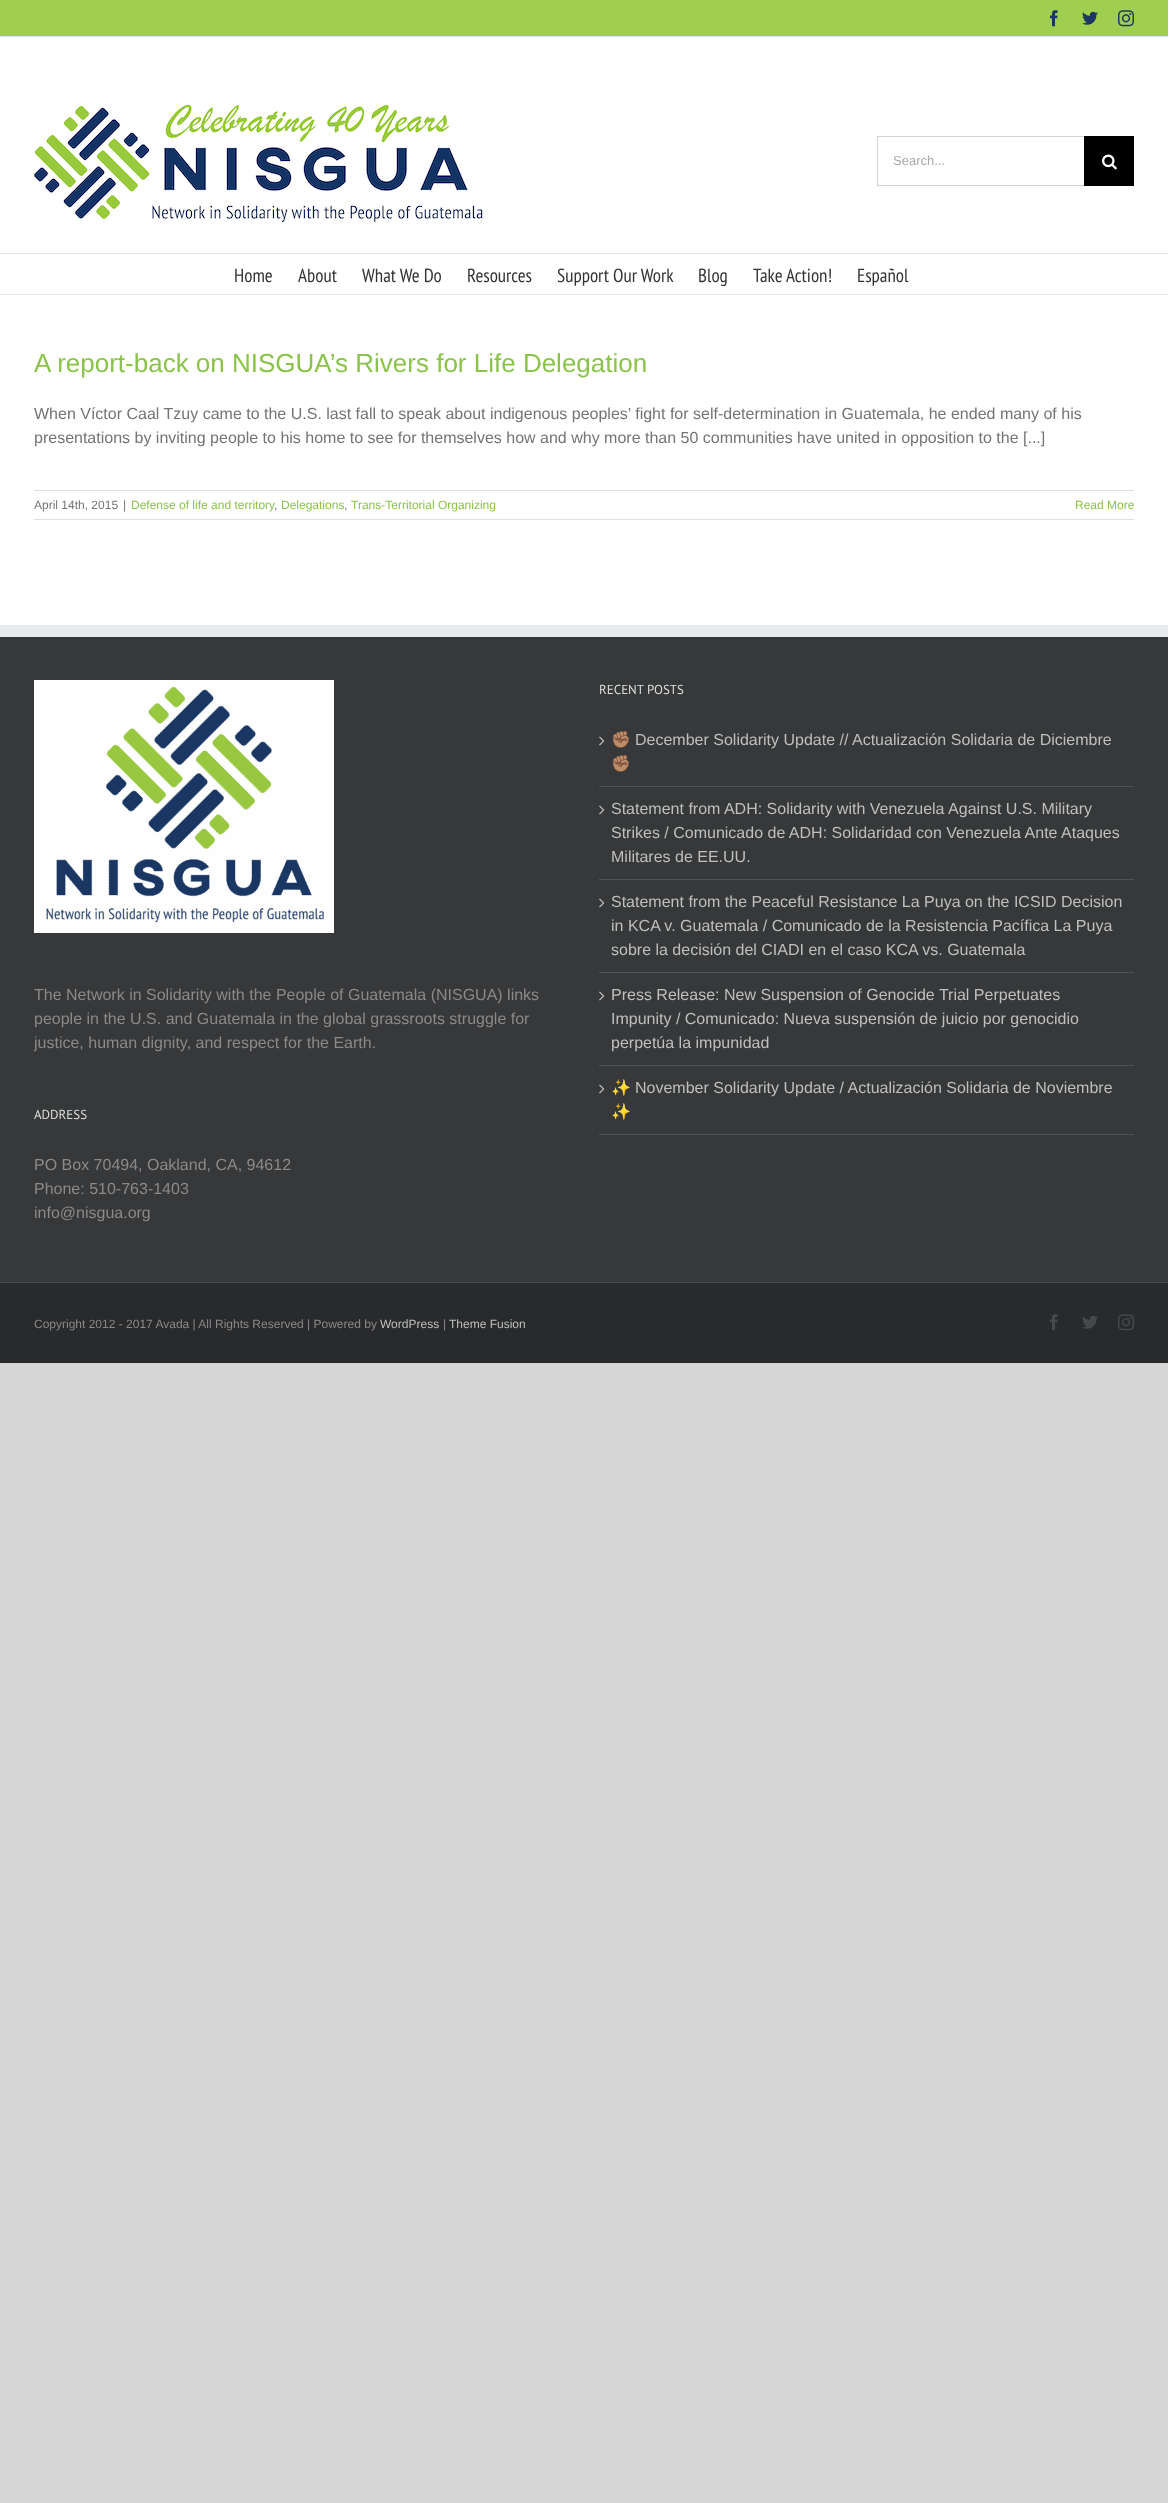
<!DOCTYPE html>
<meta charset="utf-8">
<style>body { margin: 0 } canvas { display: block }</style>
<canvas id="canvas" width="1168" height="2503"></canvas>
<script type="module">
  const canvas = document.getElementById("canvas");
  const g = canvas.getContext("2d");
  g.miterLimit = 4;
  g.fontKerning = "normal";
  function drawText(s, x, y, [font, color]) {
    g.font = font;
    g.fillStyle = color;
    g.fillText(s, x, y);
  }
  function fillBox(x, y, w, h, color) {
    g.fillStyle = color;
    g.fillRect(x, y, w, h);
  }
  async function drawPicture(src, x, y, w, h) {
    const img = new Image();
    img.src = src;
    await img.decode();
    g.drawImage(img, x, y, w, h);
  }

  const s1 = ["13px Liberation Sans", "#AAA9A9"];
  const s2 = ["19px PT Sans Narrow", "#333333"];
  const s3 = ["26px Liberation Sans", "#8BC34A"];
  const s4 = ["16px Liberation Sans", "#747474"];
  const s5 = ["12px Liberation Sans", "#747474"];
  const s6 = ["12px Liberation Sans", "#8BC34A"];
  const s7 = ["16px Liberation Sans", "#8C8989"];
  const s8 = ["13px PT Sans", "#DDDDDD"];
  const s9 = ["16px Noto Color Emoji", "#BFBFBF"];
  const s10 = ["16px Liberation Sans", "#BFBFBF"];
  const s11 = ["12px Liberation Sans", "#8C8989"];
  const s12 = ["12px Liberation Sans", "#BFBFBF"];

  fillBox(0, 0, 1168, 2503, "#D7D6D6");
  fillBox(0, 0, 1168, 36, "#A0CE4E");
  fillBox(0, 36, 1168, 1, "#E5E5E5");
  await drawPicture("pic1.png", 1050, 10, 8, 17);
  await drawPicture("pic2.png", 1082, 11, 16, 14);
  await drawPicture("pic3.png", 1118, 10, 16, 17);
  fillBox(0, 37, 1168, 216, "#FFFFFF");
  fillBox(0, 253, 1168, 1, "#E5E5E5");
  await drawPicture("pic4.png", 34, 104, 449, 119);
  fillBox(877, 136, 207, 1, "#D2D2D2");
  fillBox(877, 185, 207, 1, "#D2D2D2");
  fillBox(877, 136, 1, 50, "#D2D2D2");
  drawText("Search...", 893, 165, s1);
  fillBox(1084, 136, 50, 50, "#000000");
  await drawPicture("pic5.png", 1102, 154, 15, 16);
  fillBox(0, 254, 1168, 40, "#FFFFFF");
  fillBox(0, 294, 1168, 1, "#E5E5E5");
  drawText("Home", 234, 282, s2);
  drawText("About", 298, 282, s2);
  drawText("What We Do", 362, 282, s2);
  drawText("Resources", 467, 282, s2);
  drawText("Support Our Work", 557, 282, s2);
  drawText("Blog", 698, 282, s2);
  drawText("Take Action!", 753, 282, s2);
  drawText("Español", 857, 282, s2);
  fillBox(0, 295, 1168, 330, "#FFFFFF");
  drawText("A report-back on NISGUA’s Rivers for Life Delegation", 34, 372, s3);
  drawText("When Víctor Caal Tzuy came to the U.S. last fall to speak about indigenous peoples’ fight for self-determination in Guatemala, he ended many of his", 34, 419, s4);
  drawText("presentations by inviting people to his home to see for themselves how and why more than 50 communities have united in opposition to the [...]", 34, 443, s4);
  fillBox(34, 490, 1100, 1, "#E0DEDE");
  fillBox(34, 519, 1100, 1, "#E0DEDE");
  drawText("April 14th, 2015", 34, 509, s5);
  drawText("|", 123, 509, s5);
  drawText("Defense of life and territory", 131, 509, s6);
  drawText(",", 274, 509, s5);
  drawText("Delegations", 281, 509, s6);
  drawText(",", 344, 509, s5);
  drawText("Trans-Territorial Organizing", 351, 509, s6);
  drawText("Read More", 1075, 509, s6);
  fillBox(0, 637, 1168, 645, "#363839");
  fillBox(0, 625, 1168, 12, "#E9EAEE");
  await drawPicture("pic6.png", 34, 680, 300, 253);
  drawText("The Network in Solidarity with the People of Guatemala (NISGUA) links", 34, 1000, s7);
  drawText("people in the U.S. and Guatemala in the global grassroots struggle for", 34, 1024, s7);
  drawText("justice, human dignity, and respect for the Earth.", 34, 1048, s7);
  drawText("ADDRESS", 34, 1119, s8);
  drawText("PO Box 70494, Oakland, CA, 94612", 34, 1170, s7);
  drawText("Phone: 510-763-1403", 34, 1194, s7);
  drawText("info@nisgua.org", 34, 1218, s7);
  drawText("RECENT POSTS", 599, 694, s8);
  fillBox(599, 786, 535, 1, "#505152");
  await drawPicture("pic7.png", 599, 736, 6, 10);
  drawText("✊🏽", 611, 745, s9);
  drawText("December Solidarity Update // Actualización Solidaria de Diciembre", 635, 745, s10);
  drawText("✊🏽", 611, 769, s9);
  fillBox(599, 879, 535, 1, "#505152");
  await drawPicture("pic7.png", 599, 805, 6, 10);
  drawText("Statement from ADH: Solidarity with Venezuela Against U.S. Military", 611, 814, s10);
  drawText("Strikes / Comunicado de ADH: Solidaridad con Venezuela Ante Ataques", 611, 838, s10);
  drawText("Militares de EE.UU.", 611, 862, s10);
  fillBox(599, 972, 535, 1, "#505152");
  await drawPicture("pic7.png", 599, 898, 6, 10);
  drawText("Statement from the Peaceful Resistance La Puya on the ICSID Decision", 611, 907, s10);
  drawText("in KCA v. Guatemala / Comunicado de la Resistencia Pacífica La Puya", 611, 931, s10);
  drawText("sobre la decisión del CIADI en el caso KCA vs. Guatemala", 611, 955, s10);
  fillBox(599, 1065, 535, 1, "#505152");
  await drawPicture("pic7.png", 599, 991, 6, 10);
  drawText("Press Release: New Suspension of Genocide Trial Perpetuates", 611, 1000, s10);
  drawText("Impunity / Comunicado: Nueva suspensión de juicio por genocidio", 611, 1024, s10);
  drawText("perpetúa la impunidad", 611, 1048, s10);
  fillBox(599, 1134, 535, 1, "#505152");
  await drawPicture("pic7.png", 599, 1084, 6, 10);
  drawText("✨", 611, 1093, s9);
  drawText("November Solidarity Update / Actualización Solidaria de Noviembre", 635, 1093, s10);
  drawText("✨", 611, 1117, s9);
  fillBox(0, 1283, 1168, 80, "#282A2B");
  fillBox(0, 1282, 1168, 1, "#4B4C4D");
  drawText("Copyright 2012 - 2017 Avada | All Rights Reserved | Powered by", 34, 1328, s11);
  drawText("WordPress", 380, 1328, s12);
  drawText("|", 443, 1328, s11);
  drawText("Theme Fusion", 449, 1328, s12);
  await drawPicture("pic8.png", 1050, 1314, 8, 17);
  await drawPicture("pic9.png", 1082, 1315, 16, 14);
  await drawPicture("pic10.png", 1118, 1314, 16, 17);
</script>
